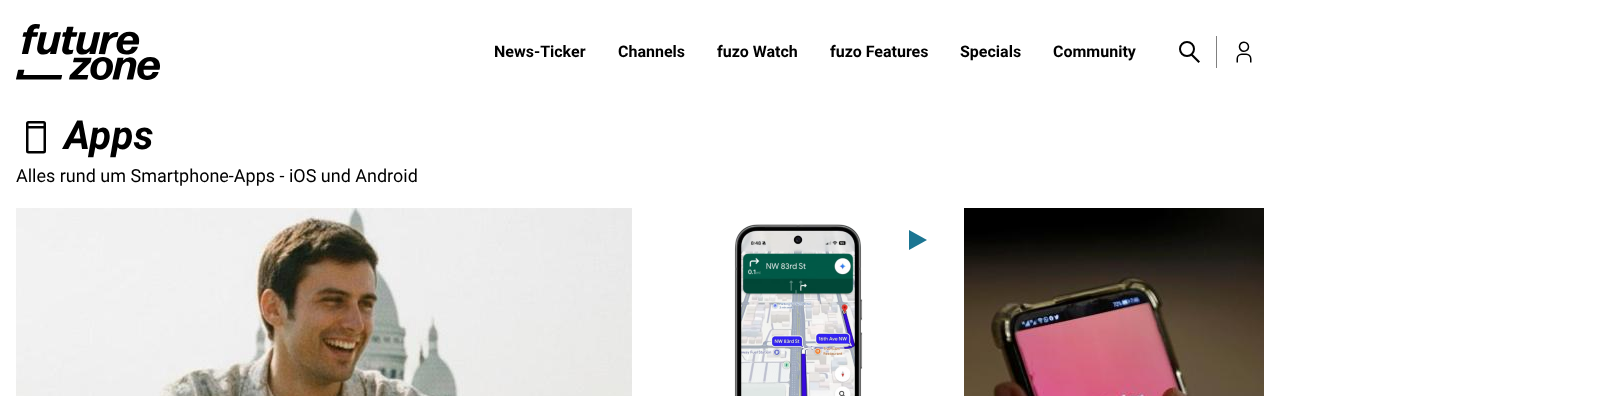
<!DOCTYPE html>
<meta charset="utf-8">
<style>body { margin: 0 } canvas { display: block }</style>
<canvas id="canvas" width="1620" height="396"></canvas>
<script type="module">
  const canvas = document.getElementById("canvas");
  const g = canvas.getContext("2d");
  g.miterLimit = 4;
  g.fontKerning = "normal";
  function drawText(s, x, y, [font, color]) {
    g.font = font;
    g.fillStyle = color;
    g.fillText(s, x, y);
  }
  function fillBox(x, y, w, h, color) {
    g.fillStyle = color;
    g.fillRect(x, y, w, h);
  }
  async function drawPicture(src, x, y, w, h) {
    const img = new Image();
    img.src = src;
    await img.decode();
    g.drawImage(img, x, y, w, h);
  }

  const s1 = ["bold 16px Roboto", "#000000"];
  const s2 = ["italic bold 40px Roboto", "#000000"];
  const s3 = ["18px Roboto", "#000000"];

  fillBox(0, 0, 1620, 396, "#FFFFFF");
  await drawPicture("pic1.png", 16, 24, 144, 56);
  drawText("News-Ticker", 494, 57, s1);
  drawText("Channels", 618, 57, s1);
  drawText("fuzo Watch", 717, 57, s1);
  drawText("fuzo Features", 830, 57, s1);
  drawText("Specials", 960, 57, s1);
  drawText("Community", 1053, 57, s1);
  g.beginPath();
  g.arc(1187, 49, 7, 0, Math.PI * 2);
  g.strokeStyle = "#000000";
  g.lineWidth = 2;
  g.stroke();
  g.beginPath();
  g.moveTo(1192, 53.5);
  g.lineTo(1200, 61.5);
  g.lineTo(1198.5, 63);
  g.lineTo(1190.5, 55);
  g.closePath();
  g.fill();
  fillBox(1216, 36, 1, 32, "#808080");
  await drawPicture("pic2.png", 1236, 41, 16, 22);
  await drawPicture("pic3.png", 26, 121, 20, 33);
  drawText("Apps", 64, 149, s2);
  drawText("Alles rund um Smartphone-Apps - iOS und Android", 16, 182, s3);
  await drawPicture("pic4.png", 16, 208, 616, 188);
  await drawPicture("pic5.png", 734, 224, 129, 172);
  g.fillStyle = "#1B7592";
  g.beginPath();
  g.moveTo(909, 250);
  g.lineTo(909, 230);
  g.lineTo(927, 240);
  g.closePath();
  g.fill();
  await drawPicture("pic6.png", 964, 208, 300, 188);
</script>
